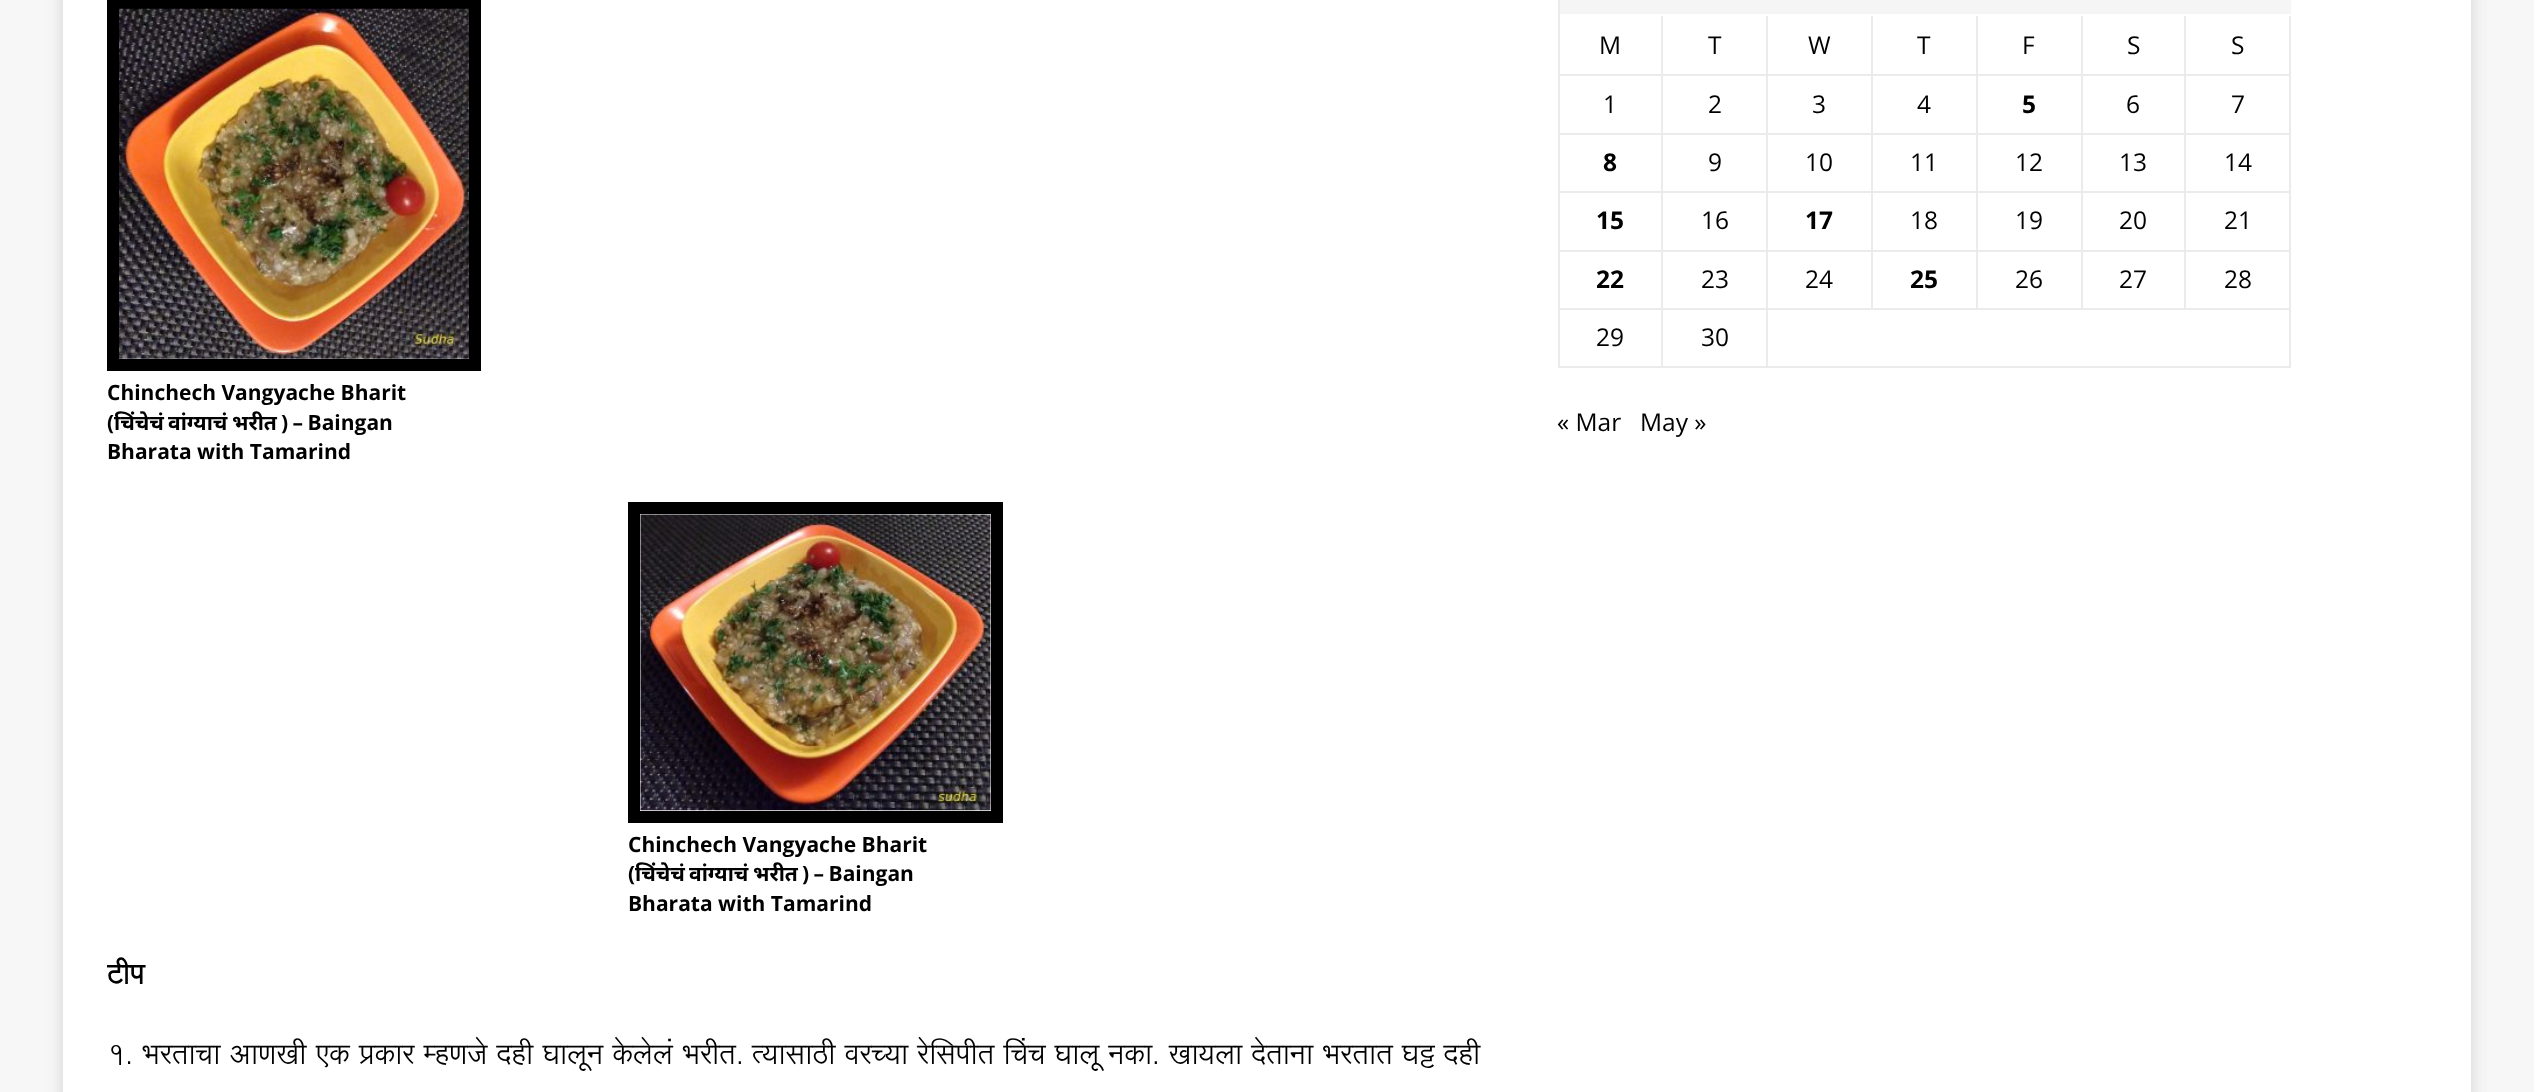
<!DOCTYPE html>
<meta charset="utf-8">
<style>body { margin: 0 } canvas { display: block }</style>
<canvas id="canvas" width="2534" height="1092"></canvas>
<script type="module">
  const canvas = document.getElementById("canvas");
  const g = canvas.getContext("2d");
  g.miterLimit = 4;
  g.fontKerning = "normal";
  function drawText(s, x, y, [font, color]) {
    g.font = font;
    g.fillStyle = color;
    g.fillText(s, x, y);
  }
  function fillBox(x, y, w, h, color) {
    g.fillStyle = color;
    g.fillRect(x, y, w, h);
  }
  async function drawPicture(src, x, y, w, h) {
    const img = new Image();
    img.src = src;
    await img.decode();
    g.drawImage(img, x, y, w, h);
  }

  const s1 = ["24.5px Open Sans", "#000000"];
  const s2 = ["bold 24.5px Open Sans", "#000000"];
  const s3 = ["bold 21px Open Sans", "#000000"];
  const s4 = ["bold 21px Noto Sans", "#000000"];
  const s5 = ["bold 28px Lohit Devanagari", "#000000"];
  const s6 = ["28px Lohit Devanagari", "#000000"];

  fillBox(0, 0, 2534, 1092, "#F7F7F7");
  g.fillStyle = "rgba(50, 50, 50, 0.17)";
  g.filter = "blur(9px)";
  g.beginPath();
  g.rect(63, -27, 2408, 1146);
  g.fill();
  g.filter = "none";
  fillBox(63, 0, 2408, 1092, "#FFFFFF");
  fillBox(1558, 0, 2, 368, "#EBEBEB");
  fillBox(1560, 0, 731, 14, "#F5F5F5");
  fillBox(2289, 16, 2, 352, "#EBEBEB");
  fillBox(2184, 308, 107, 2, "#EBEBEB");
  fillBox(2184, 250, 2, 60, "#EBEBEB");
  fillBox(2184, 250, 107, 2, "#EBEBEB");
  fillBox(2184, 191, 2, 61, "#EBEBEB");
  fillBox(2184, 191, 107, 2, "#EBEBEB");
  fillBox(2184, 133, 2, 60, "#EBEBEB");
  fillBox(2184, 133, 107, 2, "#EBEBEB");
  fillBox(2184, 74, 2, 61, "#EBEBEB");
  fillBox(2184, 74, 107, 2, "#EBEBEB");
  fillBox(2184, 16, 2, 59, "#EBEBEB");
  fillBox(2081, 308, 105, 2, "#EBEBEB");
  fillBox(2081, 250, 2, 60, "#EBEBEB");
  fillBox(2081, 250, 105, 2, "#EBEBEB");
  fillBox(2081, 191, 2, 61, "#EBEBEB");
  fillBox(2081, 191, 105, 2, "#EBEBEB");
  fillBox(2081, 133, 2, 60, "#EBEBEB");
  fillBox(2081, 133, 105, 2, "#EBEBEB");
  fillBox(2081, 74, 2, 61, "#EBEBEB");
  fillBox(2081, 74, 105, 2, "#EBEBEB");
  fillBox(2081, 16, 2, 59, "#EBEBEB");
  fillBox(1976, 308, 107, 2, "#EBEBEB");
  fillBox(1976, 250, 2, 60, "#EBEBEB");
  fillBox(1976, 250, 107, 2, "#EBEBEB");
  fillBox(1976, 191, 2, 61, "#EBEBEB");
  fillBox(1976, 191, 107, 2, "#EBEBEB");
  fillBox(1976, 133, 2, 60, "#EBEBEB");
  fillBox(1976, 133, 107, 2, "#EBEBEB");
  fillBox(1976, 74, 2, 61, "#EBEBEB");
  fillBox(1976, 74, 107, 2, "#EBEBEB");
  fillBox(1976, 16, 2, 59, "#EBEBEB");
  fillBox(1871, 308, 107, 2, "#EBEBEB");
  fillBox(1871, 250, 2, 60, "#EBEBEB");
  fillBox(1871, 250, 107, 2, "#EBEBEB");
  fillBox(1871, 191, 2, 61, "#EBEBEB");
  fillBox(1871, 191, 107, 2, "#EBEBEB");
  fillBox(1871, 133, 2, 60, "#EBEBEB");
  fillBox(1871, 133, 107, 2, "#EBEBEB");
  fillBox(1871, 74, 2, 61, "#EBEBEB");
  fillBox(1871, 74, 107, 2, "#EBEBEB");
  fillBox(1871, 16, 2, 59, "#EBEBEB");
  fillBox(1766, 366, 525, 2, "#EBEBEB");
  fillBox(1766, 308, 2, 60, "#EBEBEB");
  fillBox(1766, 308, 107, 2, "#EBEBEB");
  fillBox(1766, 250, 2, 60, "#EBEBEB");
  fillBox(1766, 250, 107, 2, "#EBEBEB");
  fillBox(1766, 191, 2, 61, "#EBEBEB");
  fillBox(1766, 191, 107, 2, "#EBEBEB");
  fillBox(1766, 133, 2, 60, "#EBEBEB");
  fillBox(1766, 133, 107, 2, "#EBEBEB");
  fillBox(1766, 74, 2, 61, "#EBEBEB");
  fillBox(1766, 74, 107, 2, "#EBEBEB");
  fillBox(1766, 16, 2, 59, "#EBEBEB");
  fillBox(1661, 366, 107, 2, "#EBEBEB");
  fillBox(1661, 308, 2, 60, "#EBEBEB");
  fillBox(1661, 308, 107, 2, "#EBEBEB");
  fillBox(1661, 250, 2, 60, "#EBEBEB");
  fillBox(1661, 250, 107, 2, "#EBEBEB");
  fillBox(1661, 191, 2, 61, "#EBEBEB");
  fillBox(1661, 191, 107, 2, "#EBEBEB");
  fillBox(1661, 133, 2, 60, "#EBEBEB");
  fillBox(1661, 133, 107, 2, "#EBEBEB");
  fillBox(1661, 74, 2, 61, "#EBEBEB");
  fillBox(1661, 74, 107, 2, "#EBEBEB");
  fillBox(1661, 16, 2, 59, "#EBEBEB");
  fillBox(1558, 74, 105, 2, "#EBEBEB");
  drawText("M", 1599, 54, s1);
  drawText("T", 1708, 54, s1);
  drawText("W", 1808, 54, s1);
  drawText("T", 1917, 54, s1);
  drawText("F", 2022, 54, s1);
  drawText("S", 2127, 54, s1);
  drawText("S", 2231, 54, s1);
  fillBox(1558, 133, 105, 2, "#EBEBEB");
  drawText("1", 1603, 113, s1);
  drawText("2", 1708, 113, s1);
  drawText("3", 1812, 113, s1);
  drawText("4", 1917, 113, s1);
  drawText("5", 2022, 113, s2);
  drawText("6", 2126, 113, s1);
  drawText("7", 2231, 113, s1);
  fillBox(1558, 191, 105, 2, "#EBEBEB");
  drawText("8", 1603, 171, s2);
  drawText("9", 1708, 171, s1);
  drawText("10", 1805, 171, s1);
  drawText("11", 1910, 171, s1);
  drawText("12", 2015, 171, s1);
  drawText("13", 2119, 171, s1);
  drawText("14", 2224, 171, s1);
  fillBox(1558, 250, 105, 2, "#EBEBEB");
  drawText("15", 1596, 229, s2);
  drawText("16", 1701, 229, s1);
  drawText("17", 1805, 229, s2);
  drawText("18", 1910, 229, s1);
  drawText("19", 2015, 229, s1);
  drawText("20", 2119, 229, s1);
  drawText("21", 2224, 229, s1);
  fillBox(1558, 308, 105, 2, "#EBEBEB");
  drawText("22", 1596, 288, s2);
  drawText("23", 1701, 288, s1);
  drawText("24", 1805, 288, s1);
  drawText("25", 1910, 288, s2);
  drawText("26", 2015, 288, s1);
  drawText("27", 2119, 288, s1);
  drawText("28", 2224, 288, s1);
  fillBox(1558, 366, 105, 2, "#EBEBEB");
  drawText("29", 1596, 346, s1);
  drawText("30", 1701, 346, s1);
  drawText("« Mar", 1557, 431, s1);
  drawText("May »", 1640, 431, s1);
  g.strokeStyle = "#000000";
  g.lineWidth = 12;
  g.strokeRect(113, 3, 362, 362);
  await drawPicture("pic1.png", 119, 8, 350, 351);
  drawText("Chinchech Vangyache Bharit", 107, 400, s3);
  drawText("(", 107, 430, s3);
  drawText("चिंचेचं", 114, 430, s4);
  drawText("वांग्याचं", 168, 430, s4);
  drawText("भरीत", 232, 430, s4);
  g.wordSpacing = "-1px";
  drawText(") – Baingan", 281, 430, s3);
  g.wordSpacing = "0px";
  drawText("Bharata with Tamarind", 107, 459, s3);
  g.strokeRect(634, 508, 363, 309);
  await drawPicture("pic2.png", 640, 514, 351, 297);
  drawText("Chinchech Vangyache Bharit", 628, 852, s3);
  drawText("(", 628, 881, s3);
  drawText("चिंचेचं", 635, 881, s4);
  drawText("वांग्याचं", 689, 881, s4);
  drawText("भरीत", 753, 881, s4);
  g.wordSpacing = "-1px";
  drawText(") – Baingan", 802, 881, s3);
  g.wordSpacing = "0px";
  drawText("Bharata with Tamarind", 628, 911, s3);
  g.save();
  g.beginPath();
  g.rect(107, 0, 1393, 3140);
  g.clip();
  drawText("टीप", 107, 984, s5);
  g.restore();
  drawText("१.", 107, 1064, s6);
  g.wordSpacing = "0.75px";
  drawText("भरताचा आणखी एक प्रकार म्हणजे दही घालून केलेलं भरीत", 142, 1064, s6);
  g.wordSpacing = "0px";
  drawText(".", 736, 1064, s6);
  g.wordSpacing = "0.5px";
  drawText("त्यासाठी वरच्या रेसिपीत चिंच घालू नका", 752, 1064, s6);
  g.wordSpacing = "0px";
  drawText(".", 1152, 1064, s6);
  g.wordSpacing = "0.5px";
  drawText("खायला देताना भरतात घट्ट दही", 1169, 1064, s6);
</script>
